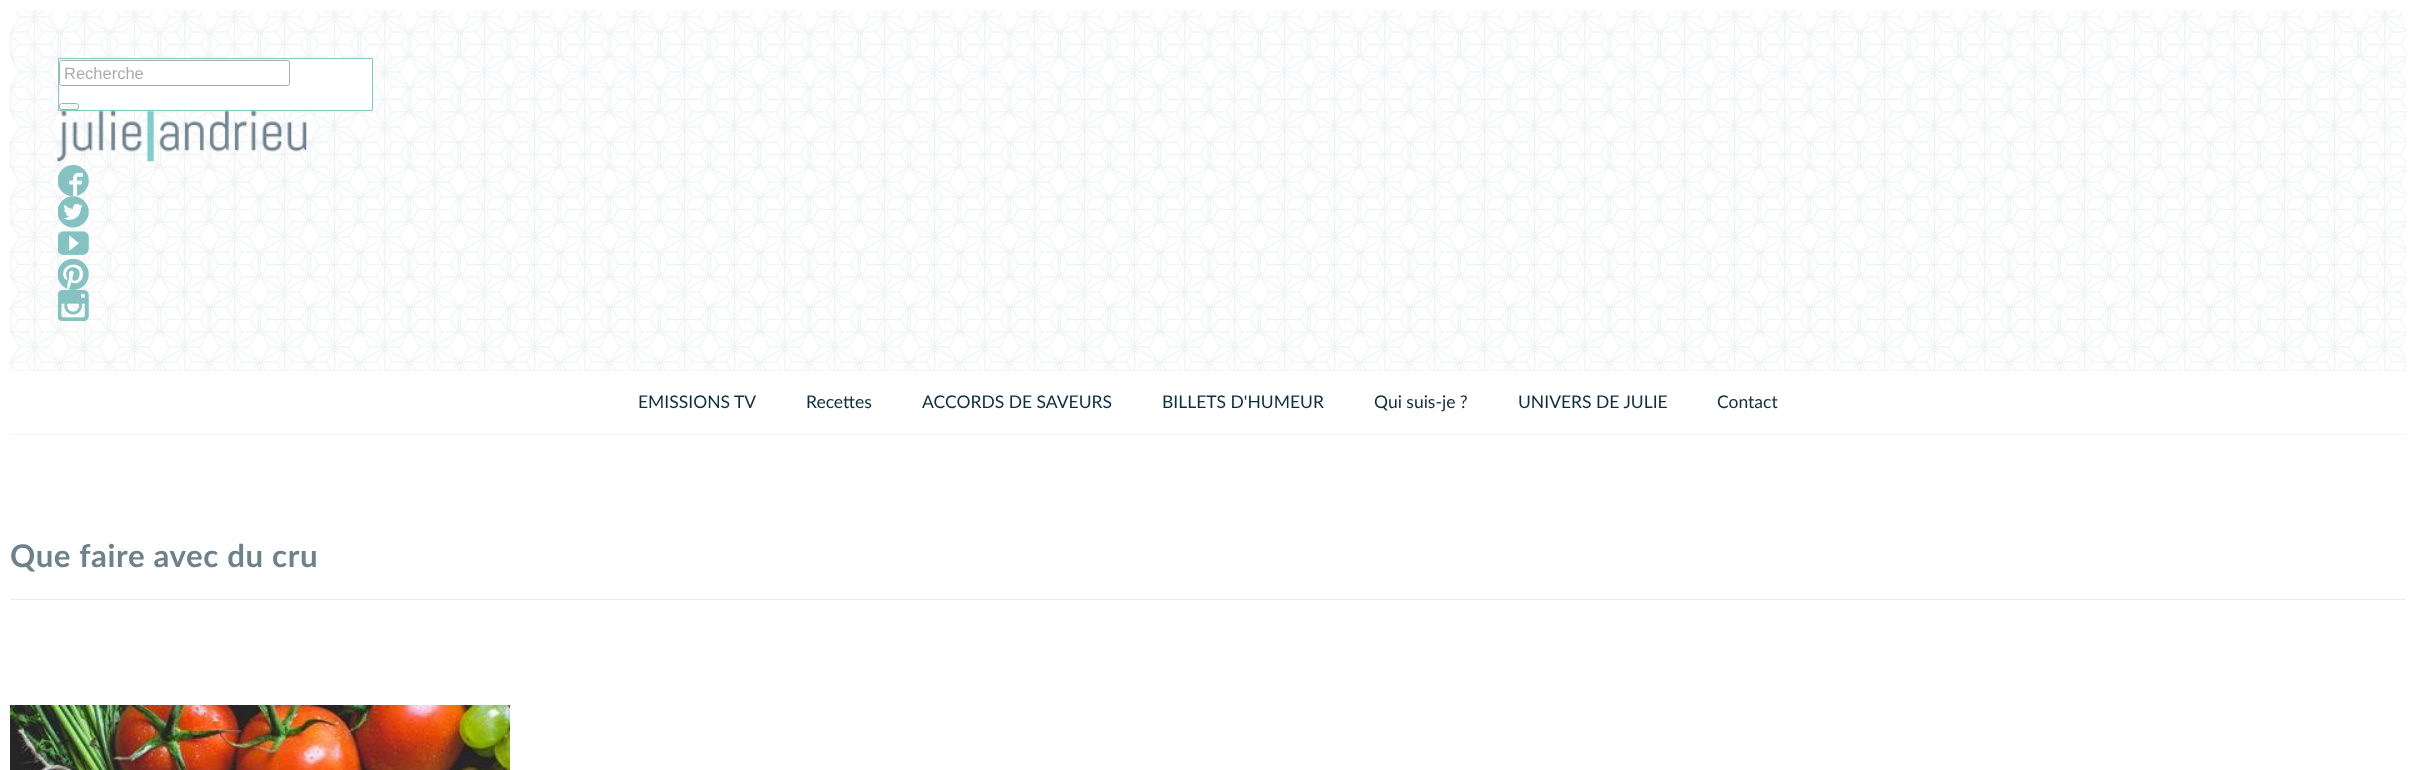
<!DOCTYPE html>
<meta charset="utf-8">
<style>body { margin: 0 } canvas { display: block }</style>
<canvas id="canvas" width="2416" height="770"></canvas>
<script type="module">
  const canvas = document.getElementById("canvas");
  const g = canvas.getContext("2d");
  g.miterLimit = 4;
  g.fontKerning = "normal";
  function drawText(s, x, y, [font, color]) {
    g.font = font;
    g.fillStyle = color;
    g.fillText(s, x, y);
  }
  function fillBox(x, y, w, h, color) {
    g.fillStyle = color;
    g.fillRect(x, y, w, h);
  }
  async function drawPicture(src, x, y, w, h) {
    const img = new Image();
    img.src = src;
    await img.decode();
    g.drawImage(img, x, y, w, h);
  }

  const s1 = ["16.5px Liberation Sans", "#ACACAC"];
  const s2 = ["17.5px Lato", "#0C2E41"];
  const s3 = ["bold 31.25px Lato", "#6D828D"];

  fillBox(0, 0, 2416, 770, "#FFFFFF");
  await drawPicture("pic1.png", 10, 10, 2397, 360);
  g.beginPath();
  g.rect(58.5, 58.5, 314, 52);
  g.fill();
  g.strokeStyle = "#7ACCCB";
  g.stroke();
  g.beginPath();
  g.roundRect(59.5, 60.5, 230, 25, 2);
  g.strokeStyle = "#ADADAD";
  g.stroke();
  drawText("Recherche", 64, 79, s1);
  g.fillStyle = "#F5F5F5";
  g.beginPath();
  g.roundRect(59.5, 103.5, 19, 6, 2);
  g.fill();
  g.stroke();
  await drawPicture("pic2.png", 57, 111, 250, 51);
  await drawPicture("pic3.png", 58, 165, 31, 31);
  await drawPicture("pic4.png", 58, 196, 31, 32);
  await drawPicture("pic5.png", 58, 231, 31, 24);
  await drawPicture("pic6.png", 58, 259, 31, 31);
  await drawPicture("pic7.png", 58, 290, 31, 31);
  fillBox(10, 370, 2396, 1, "#F5F5F5");
  fillBox(10, 434, 2396, 1, "#F5F5F5");
  drawText("EMISSIONS TV", 638, 408, s2);
  drawText("Recettes", 806, 408, s2);
  drawText("ACCORDS DE SAVEURS", 922, 408, s2);
  drawText("BILLETS D'HUMEUR", 1162, 408, s2);
  drawText("Qui suis-je ?", 1374, 408, s2);
  drawText("UNIVERS DE JULIE", 1518, 408, s2);
  drawText("Contact", 1717, 408, s2);
  fillBox(10, 599, 2396, 1, "#EDEDED");
  g.letterSpacing = "0.6px";
  drawText("Que faire avec du cru", 10, 567, s3);
  await drawPicture("pic8.png", 10, 705, 500, 65);
</script>
